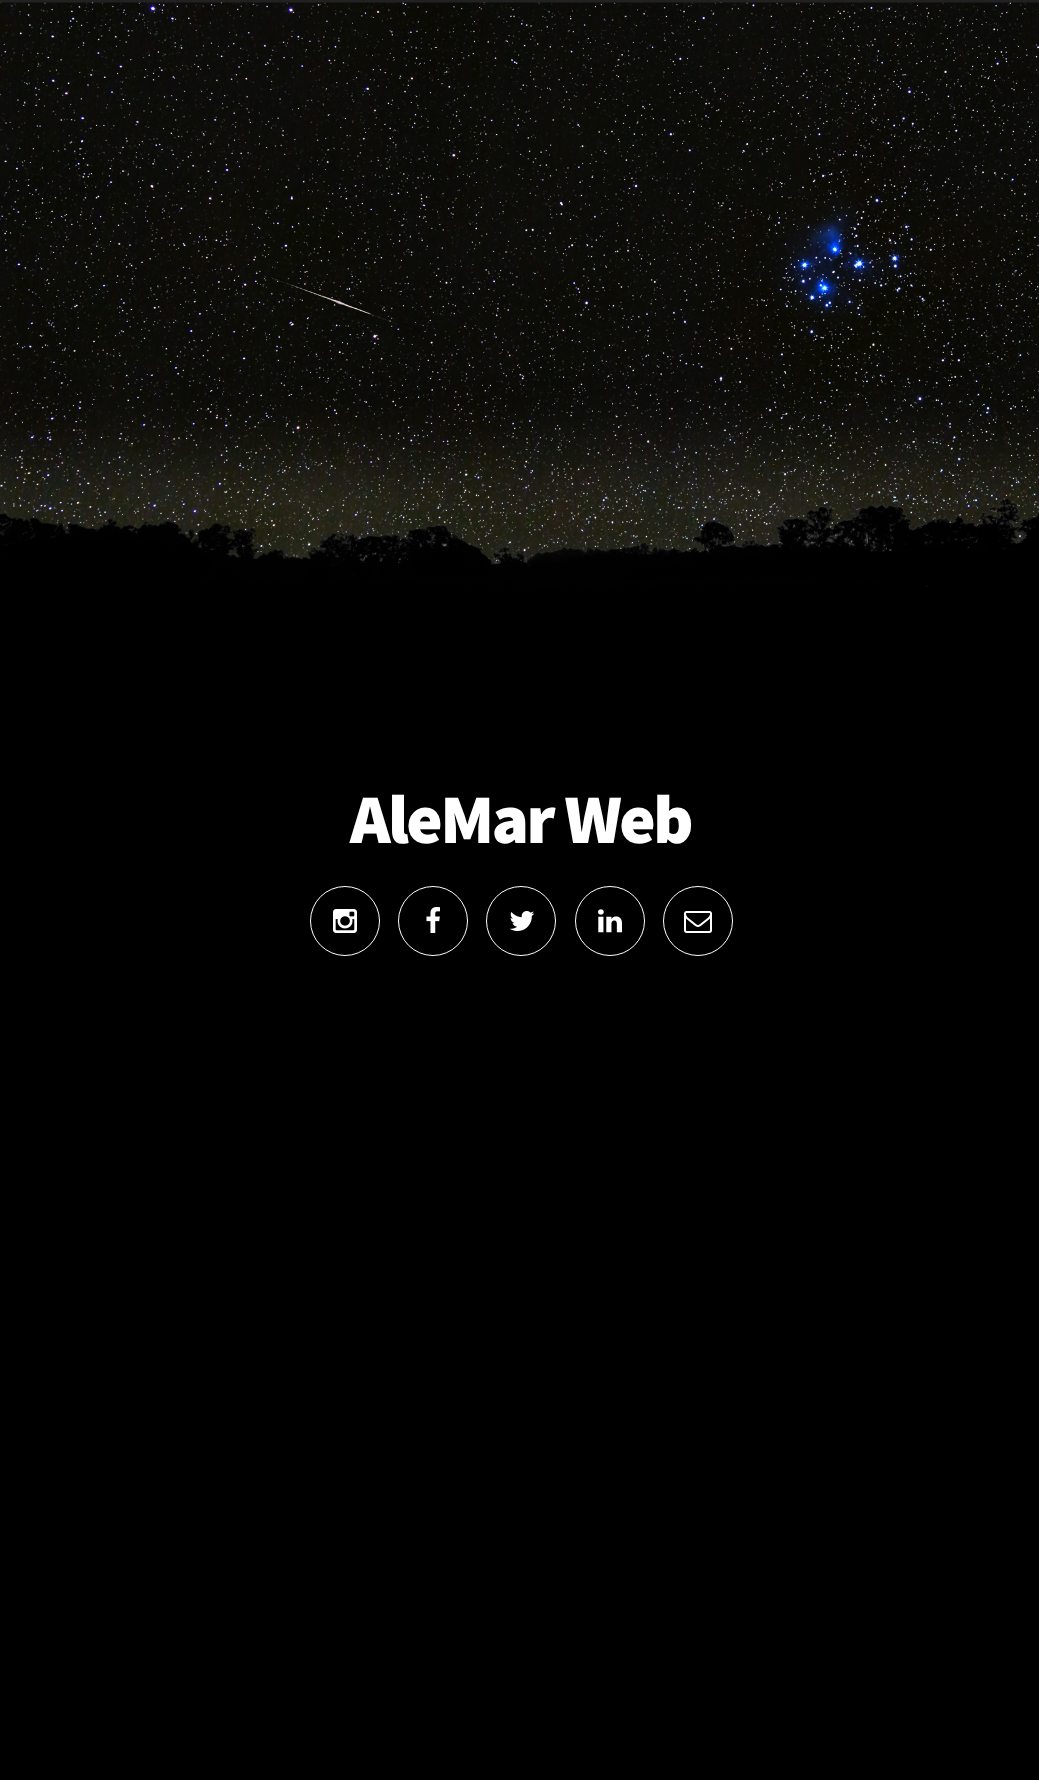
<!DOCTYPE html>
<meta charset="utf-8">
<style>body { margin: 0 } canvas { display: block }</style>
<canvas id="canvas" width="1039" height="1780"></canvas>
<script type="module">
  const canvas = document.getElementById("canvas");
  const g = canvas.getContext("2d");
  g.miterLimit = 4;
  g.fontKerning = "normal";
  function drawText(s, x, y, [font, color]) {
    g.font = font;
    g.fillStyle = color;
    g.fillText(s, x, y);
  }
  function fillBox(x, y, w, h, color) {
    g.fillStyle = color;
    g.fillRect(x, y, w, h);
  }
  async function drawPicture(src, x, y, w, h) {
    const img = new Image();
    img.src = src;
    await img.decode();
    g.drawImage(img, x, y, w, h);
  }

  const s1 = ["900 69.5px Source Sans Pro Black", "#FFFFFF"];

  fillBox(0, 0, 1039, 1780, "#000000");
  await drawPicture("pic1.png", 0, 0, 1039, 587);
  g.letterSpacing = "-2.5px";
  drawText("AleMar Web", 350, 843, s1);
  g.beginPath();
  g.arc(345, 921, 34.5, 0, Math.PI * 2);
  g.strokeStyle = "#FFFFFF";
  g.stroke();
  await drawPicture("pic2.png", 333, 909, 24, 24);
  g.beginPath();
  g.arc(433, 921, 34.5, 0, Math.PI * 2);
  g.stroke();
  await drawPicture("pic3.png", 426, 907, 14, 26);
  g.beginPath();
  g.arc(521, 921, 34.5, 0, Math.PI * 2);
  g.stroke();
  await drawPicture("pic4.png", 509, 911, 26, 20);
  g.beginPath();
  g.arc(610, 921, 34.5, 0, Math.PI * 2);
  g.stroke();
  await drawPicture("pic5.png", 598, 909, 24, 24);
  g.beginPath();
  g.arc(698, 921, 34.5, 0, Math.PI * 2);
  g.stroke();
  await drawPicture("pic6.png", 684, 911, 28, 22);
</script>
